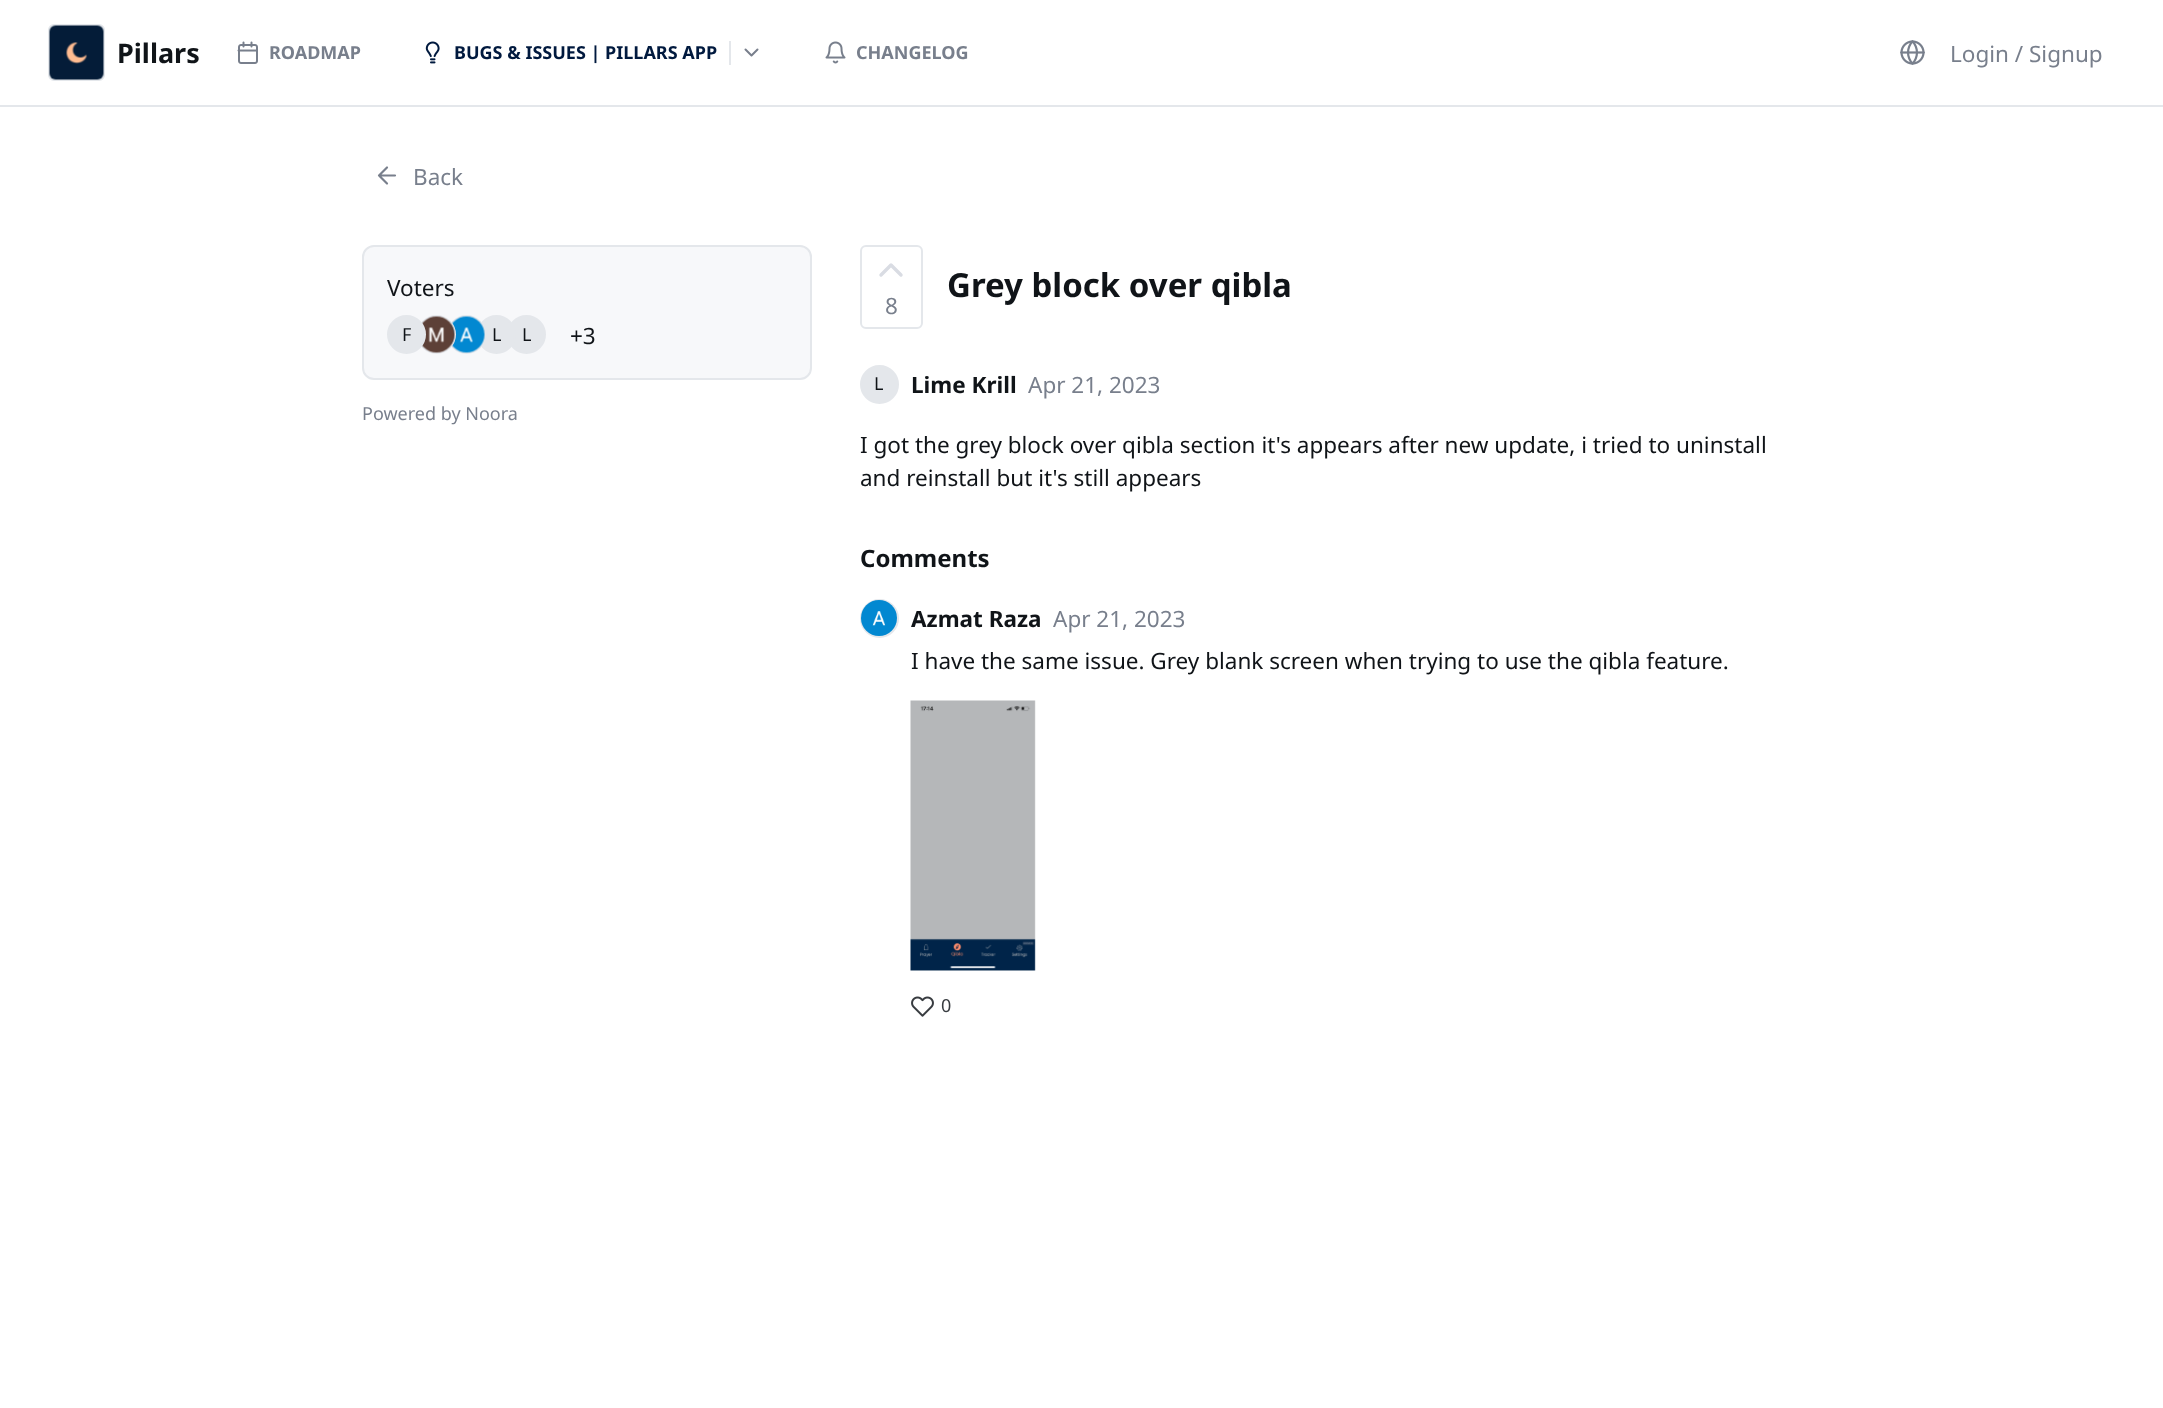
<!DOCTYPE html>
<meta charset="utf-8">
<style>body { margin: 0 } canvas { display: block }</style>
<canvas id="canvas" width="2163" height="1408"></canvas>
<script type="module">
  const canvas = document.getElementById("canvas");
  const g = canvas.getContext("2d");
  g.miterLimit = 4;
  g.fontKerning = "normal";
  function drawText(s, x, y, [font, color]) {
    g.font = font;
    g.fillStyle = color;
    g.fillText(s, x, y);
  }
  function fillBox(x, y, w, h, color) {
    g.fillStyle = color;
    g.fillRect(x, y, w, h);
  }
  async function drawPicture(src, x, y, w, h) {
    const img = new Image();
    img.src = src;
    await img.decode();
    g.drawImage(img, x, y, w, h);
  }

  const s1 = ["bold 27px Noto Sans", "#101418"];
  const s2 = ["bold 18px Noto Sans", "#787F8C"];
  const s3 = ["bold 18px Noto Sans", "#00193E"];
  const s4 = ["22.5px Noto Sans", "#787F8C"];
  const s5 = ["22.5px Noto Sans", "#101418"];
  const s6 = ["18px Noto Sans", "#101418"];
  const s7 = ["18px Noto Sans", "#787F8C"];
  const s8 = ["bold 33px Noto Sans", "#101418"];
  const s9 = ["bold 22.5px Noto Sans", "#101418"];
  const s10 = ["bold 24px Noto Sans", "#101418"];
  const s11 = ["18px Noto Sans", "#383C40"];

  fillBox(0, 0, 2163, 1408, "#FFFFFF");
  fillBox(0, 105, 2163, 2, "#E4E7EB");
  g.beginPath();
  g.roundRect(49, 25, 55, 55, 5);
  g.fill();
  g.strokeStyle = "#E4E7EB";
  g.lineWidth = 2;
  g.stroke();
  await drawPicture("pic1.png", 49, 25, 55, 55);
  drawText("Pillars", 117, 63, s1);
  await drawPicture("pic2.png", 237, 41, 21, 23);
  drawText("ROADMAP", 269, 59, s2);
  await drawPicture("pic3.png", 425, 41, 15, 23);
  drawText("BUGS & ISSUES | PILLARS APP", 454, 59, s3);
  fillBox(729, 41, 2, 24, "#E4E7EB");
  g.beginPath();
  g.moveTo(745.5, 49.5);
  g.lineTo(751.5, 55.5);
  g.lineTo(757.5, 49.5);
  g.strokeStyle = "#787F8C";
  g.lineCap = "round";
  g.lineJoin = "round";
  g.stroke();
  await drawPicture("pic4.png", 825, 41, 21, 23);
  drawText("CHANGELOG", 856, 59, s2);
  await drawPicture("pic5.png", 1900, 40, 25, 25);
  drawText("Login / Signup", 1950, 62, s4);
  g.beginPath();
  g.moveTo(395, 175.5);
  g.lineTo(379, 175.5);
  g.moveTo(387, 183.5);
  g.lineTo(379, 175.5);
  g.lineTo(387, 167.5);
  g.lineWidth = 2.2;
  g.stroke();
  drawText("Back", 413, 185, s4);
  g.fillStyle = "#F7F8FA";
  g.beginPath();
  g.roundRect(363, 246, 448, 133, 11);
  g.fill();
  g.strokeStyle = "#E4E7EB";
  g.lineWidth = 2;
  g.lineJoin = "miter";
  g.stroke();
  drawText("Voters", 387, 296, s5);
  g.fillStyle = "#E4E7EB";
  g.beginPath();
  g.arc(526.5, 334.5, 18.5, 0, Math.PI * 2);
  g.fill();
  g.stroke();
  g.beginPath();
  g.arc(496.5, 334.5, 18.5, 0, Math.PI * 2);
  g.fill();
  g.stroke();
  g.beginPath();
  g.arc(466.5, 334.5, 18.5, 0, Math.PI * 2);
  g.stroke();
  await drawPicture("pic7.png", 450, 316, 35, 37);
  g.beginPath();
  g.arc(436.5, 334.5, 18.5, 0, Math.PI * 2);
  g.stroke();
  await drawPicture("pic6.png", 422, 316, 33, 37);
  g.beginPath();
  g.arc(406.5, 334.5, 18.5, 0, Math.PI * 2);
  g.fill();
  g.stroke();
  drawText("F", 402, 341, s6);
  drawText("L", 492, 341, s6);
  drawText("L", 522, 341, s6);
  drawText("+3", 570, 344, s5);
  drawText("Powered by Noora", 362, 420, s7);
  g.beginPath();
  g.roundRect(861, 246, 61, 82, 5);
  g.stroke();
  g.beginPath();
  g.moveTo(881, 275);
  g.lineTo(891, 265);
  g.lineTo(901, 275);
  g.strokeStyle = "#D9DCE3";
  g.lineWidth = 3.4;
  g.lineJoin = "round";
  g.stroke();
  drawText("8", 885, 314, s4);
  drawText("Grey block over qibla", 947, 297, s8);
  g.fillStyle = "#E4E7EB";
  g.beginPath();
  g.arc(879.5, 384.5, 18.5, 0, Math.PI * 2);
  g.fill();
  g.strokeStyle = "#E4E7EB";
  g.lineWidth = 2;
  g.stroke();
  drawText("L", 874, 390, s6);
  drawText("Lime Krill", 911, 393, s9);
  drawText("Apr 21, 2023", 1028, 393, s4);
  drawText("I got the grey block over qibla section it's appears after new update, i tried to uninstall", 860, 453, s5);
  drawText("and reinstall but it's still appears", 860, 486, s5);
  drawText("Comments", 860, 567, s10);
  g.fillStyle = "#E4E7EB";
  g.beginPath();
  g.arc(879.5, 618.5, 18.5, 0, Math.PI * 2);
  g.fill();
  g.stroke();
  await drawPicture("pic8.png", 861, 600, 36, 36);
  drawText("Azmat Raza", 911, 627, s9);
  drawText("Apr 21, 2023", 1053, 627, s4);
  drawText("I have the same issue. Grey blank screen when trying to use the qibla feature.", 911, 669, s5);
  await drawPicture("pic9.png", 910, 700, 126, 271);
  await drawPicture("pic10.png", 911, 996, 23, 21);
  drawText("0", 941, 1012, s11);
</script>
